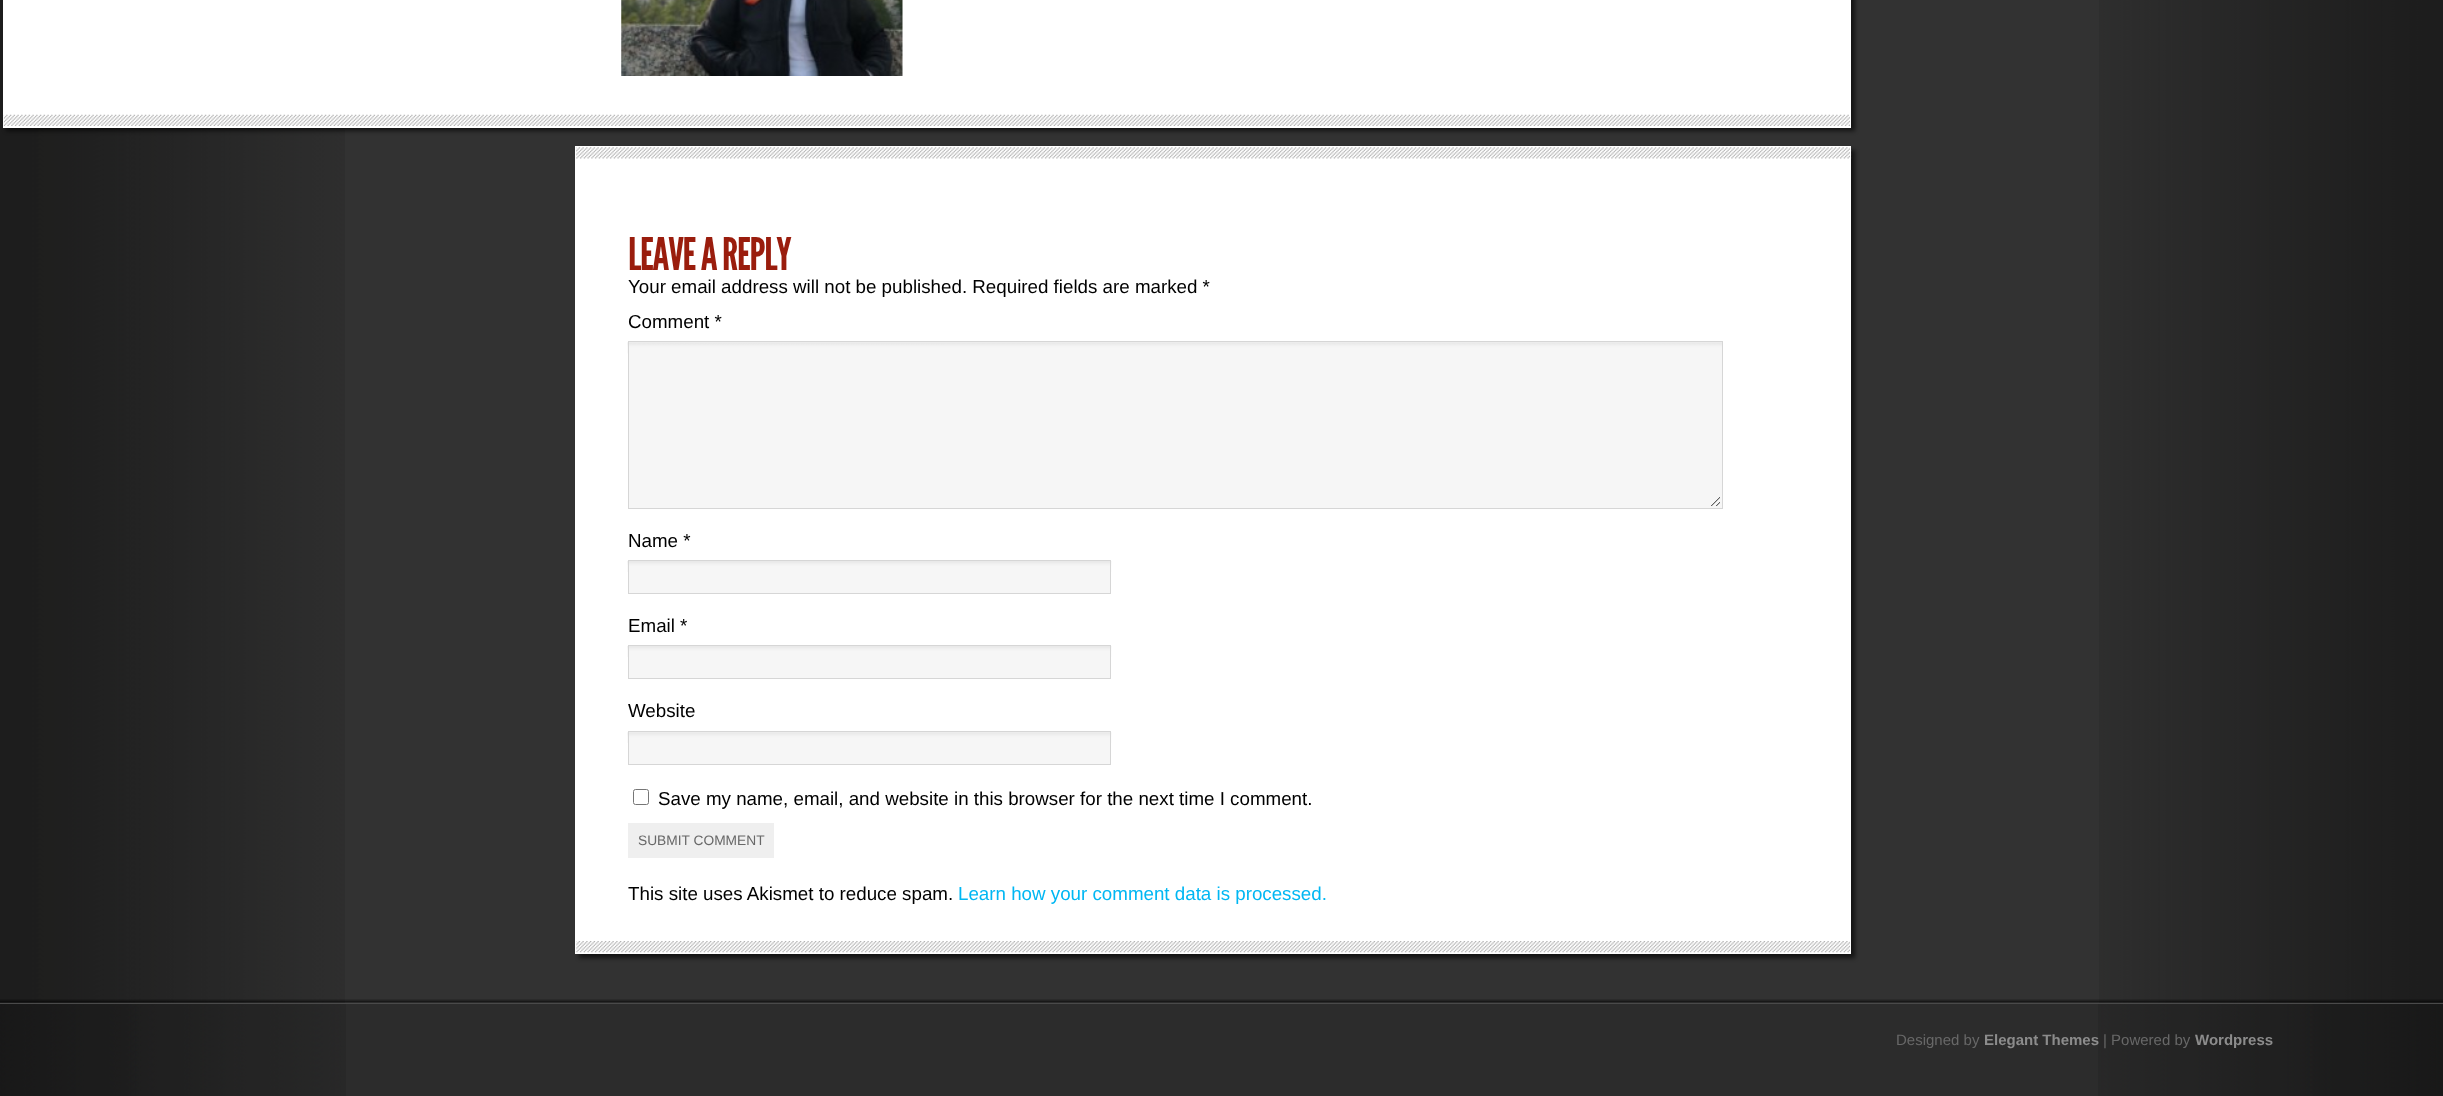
<!DOCTYPE html>
<meta charset="utf-8">
<style>body { margin: 0 } canvas { display: block }</style>
<canvas id="canvas" width="2443" height="1096"></canvas>
<script type="module">
  const canvas = document.getElementById("canvas");
  const g = canvas.getContext("2d");
  g.miterLimit = 4;
  g.fontKerning = "normal";
  function drawText(s, x, y, [font, color]) {
    g.font = font;
    g.fillStyle = color;
    g.fillText(s, x, y);
  }
  function fillBox(x, y, w, h, color) {
    g.fillStyle = color;
    g.fillRect(x, y, w, h);
  }
  async function drawPicture(src, x, y, w, h) {
    const img = new Image();
    img.src = src;
    await img.decode();
    g.drawImage(img, x, y, w, h);
  }

  const s1 = ["45px League Gothic", "#9A1D0D"];
  const s2 = ["18.75px Liberation Sans", "#000000"];
  const s3 = ["13.75px Liberation Sans", "#686868"];
  const s4 = ["18.75px Liberation Sans", "#00B7F3"];
  const s5 = ["15px Liberation Sans", "#686868"];
  const s6 = ["bold 15px Liberation Sans", "#8C8C8C"];

  fillBox(0, 0, 2443, 1096, "#2C2C2C");
  fillBox(345, 0, 1754, 1003, "#323232");
  await drawPicture("pic1.png", 0, 0, 345, 1003);
  await drawPicture("pic2.png", 2099, 0, 344, 1003);
  g.fillStyle = "rgba(0, 0, 0, 0.6)";
  g.filter = "blur(2px)";
  g.beginPath();
  g.rect(6, -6, 1849, 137);
  g.fill();
  g.filter = "none";
  fillBox(3, 0, 1848, 128, "#FFFFFF");
  await drawPicture("pic3.png", 3, 114, 1847, 12);
  await drawPicture("pic4.png", 621, 0, 282, 76);
  g.fillStyle = "rgba(0, 0, 0, 0.6)";
  g.filter = "blur(2px)";
  g.beginPath();
  g.rect(579, 150, 1276, 808);
  g.fill();
  g.filter = "none";
  fillBox(576, 147, 1274, 806, "#FFFFFF");
  await drawPicture("pic5.png", 576, 147, 1276, 12);
  g.strokeStyle = "#FFFFFF";
  g.strokeRect(575.5, 146.5, 1275, 807);
  await drawPicture("pic6.png", 576, 941, 1274, 12);
  g.letterSpacing = "-1.25px";
  drawText("LEAVE A REPLY", 628, 270, s1);
  g.letterSpacing = "0px";
  drawText("Your email address will not be published. Required fields are marked *", 628, 293, s2);
  drawText("Comment *", 628, 328, s2);
  fillBox(629, 342, 1093, 166, "#F6F6F6");
  await drawPicture("pic7.png", 627, 342, 1095, 164);
  g.strokeStyle = "#D6D6D6";
  g.strokeRect(628.5, 341.5, 1094, 167);
  drawText("Name *", 628, 547, s2);
  fillBox(629, 572, 481, 21, "#F6F6F6");
  await drawPicture("pic8.png", 627, 561, 485, 11);
  g.strokeRect(628.5, 560.5, 482, 33);
  drawText("Email *", 628, 632, s2);
  fillBox(629, 657, 481, 21, "#F6F6F6");
  await drawPicture("pic8.png", 627, 646, 485, 11);
  g.strokeRect(628.5, 645.5, 482, 33);
  drawText("Website", 628, 717, s2);
  fillBox(629, 732, 481, 32, "#F6F6F6");
  await drawPicture("pic9.png", 627, 732, 485, 11);
  g.strokeRect(628.5, 731.5, 482, 33);
  g.beginPath();
  g.roundRect(633.5, 789.5, 15, 15, 2);
  g.strokeStyle = "#767676";
  g.stroke();
  drawText("Save my name, email, and website in this browser for the next time I comment.", 658, 805, s2);
  fillBox(628, 823, 146, 35, "#EFEFEF");
  drawText("SUBMIT COMMENT", 638, 845, s3);
  drawText("This site uses Akismet to reduce spam.", 628, 900, s2);
  drawText("Learn how your comment data is processed.", 958, 900, s4);
  await drawPicture("pic10.png", 0, 999, 2443, 4);
  fillBox(0, 1003, 2443, 1, "#4A4A4A");
  await drawPicture("pic11.png", 0, 1004, 346, 92);
  await drawPicture("pic12.png", 2098, 1004, 345, 92);
  drawText("Designed by", 1896, 1045, s5);
  drawText("Elegant Themes", 1984, 1045, s6);
  drawText("| Powered by", 2103, 1045, s5);
  drawText("Wordpress", 2195, 1045, s6);
</script>
